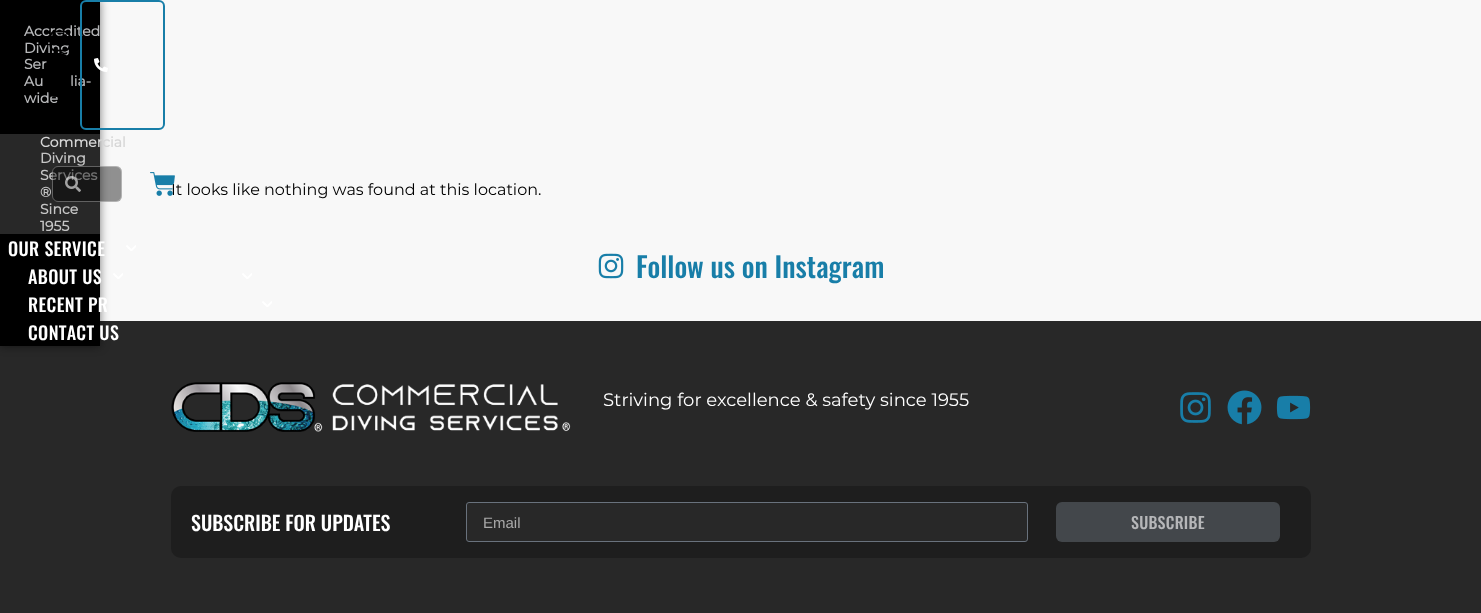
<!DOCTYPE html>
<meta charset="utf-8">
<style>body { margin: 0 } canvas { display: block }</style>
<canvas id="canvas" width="1481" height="613"></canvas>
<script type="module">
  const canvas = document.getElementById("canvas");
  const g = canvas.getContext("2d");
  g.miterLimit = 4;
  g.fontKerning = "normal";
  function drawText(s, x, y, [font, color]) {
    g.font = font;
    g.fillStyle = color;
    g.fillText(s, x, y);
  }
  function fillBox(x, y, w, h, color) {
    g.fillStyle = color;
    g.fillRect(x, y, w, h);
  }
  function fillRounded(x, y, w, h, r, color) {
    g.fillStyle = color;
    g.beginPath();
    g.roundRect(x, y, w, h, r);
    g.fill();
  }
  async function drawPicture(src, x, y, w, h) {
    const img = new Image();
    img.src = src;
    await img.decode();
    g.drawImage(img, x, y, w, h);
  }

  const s1 = ["bold 14px Montserrat", "#B6B7B9"];
  const s2 = ["bold 14px Montserrat", "#D6D6D6"];
  const s3 = ["bold 14px Montserrat", "#C5C5C5"];
  const s4 = ["16px Montserrat", "#000000"];
  const s5 = ["500 18px Oswald", "#FFFFFF"];
  const s6 = ["500 28px Oswald", "#187EA8"];
  const s7 = ["18px Montserrat", "#FFFFFF"];
  const s8 = ["500 20px Oswald", "#FFFFFF"];
  const s9 = ["15px Liberation Sans", "#A9A9A9"];
  const s10 = ["500 16px Oswald", "#B6B7B9"];

  fillBox(0, 0, 1481, 613, "#F8F8F8");
  fillBox(0, 321, 1481, 292, "#282828");
  g.fillStyle = "rgba(0, 0, 0, 0.5)";
  g.filter = "blur(5px)";
  g.beginPath();
  g.rect(0, 0, 100, 346);
  g.fill();
  g.filter = "none";
  fillBox(0, 0, 100, 134, "#000000");
  drawText("Accredited", 24, 36, s1);
  drawText("Diving", 24, 53, s1);
  await drawPicture("pic1.png", 49, 30, 22, 22);
  await drawPicture("pic2.png", 48, 54, 24, 16);
  drawText("lia-", 70, 86, s1);
  drawText("wide", 24, 103, s1);
  await drawPicture("pic3.png", 48, 81, 24, 16);
  g.beginPath();
  g.roundRect(81, 1, 83, 128, 5);
  g.strokeStyle = "#187EA8";
  g.lineWidth = 2;
  g.stroke();
  await drawPicture("pic4.png", 94, 58, 14, 14);
  drawText("Ser", 24, 69, s1);
  drawText("Au", 24, 86, s1);
  fillBox(0, 134, 100, 100, "#282828");
  drawText("Commercial", 40, 147, s2);
  drawText("Diving", 40, 163, s3);
  drawText("Services", 40, 180, s3);
  drawText("®", 40, 197, s3);
  drawText("Since", 40, 214, s3);
  drawText("1955", 40, 231, s3);
  fillRounded(52, 166, 70, 36, 6, "rgba(0, 0, 0, 0.42)");
  g.beginPath();
  g.roundRect(52.5, 166.5, 69, 35, 5.5);
  g.strokeStyle = "rgba(255, 255, 255, 0.32)";
  g.lineWidth = 1;
  g.stroke();
  await drawPicture("pic5.png", 65, 176, 16, 16);
  drawText("It looks like nothing was found at this location.", 171, 195, s4);
  await drawPicture("pic6.png", 150, 172, 25, 24);
  fillBox(0, 234, 100, 112, "#000000");
  g.letterSpacing = "0.4px";
  drawText("OUR SERVICE", 8, 256, s5);
  await drawPicture("pic7.png", 126, 245, 10, 6);
  drawText("ABOUT US", 28, 284, s5);
  await drawPicture("pic8.png", 113, 273, 10, 6);
  drawText("RECENT PR", 28, 312, s5);
  drawText("CONTACT US", 28, 340, s5);
  await drawPicture("pic7.png", 242, 273, 10, 6);
  await drawPicture("pic7.png", 262, 301, 10, 6);
  await drawPicture("pic9.png", 598, 253, 26, 26);
  g.letterSpacing = "0px";
  drawText("Follow us on Instagram", 636, 278, s6);
  await drawPicture("pic10.png", 171, 382, 400, 50);
  drawText("Striving for excellence & safety since 1955", 603, 406, s7);
  await drawPicture("pic11.png", 1180, 392, 31, 31);
  await drawPicture("pic12.png", 1227, 390, 35, 35);
  await drawPicture("pic13.png", 1276, 395, 35, 25);
  fillRounded(171, 486, 1140, 72, 10, "#1E1E1E");
  drawText("SUBSCRIBE FOR UPDATES", 191, 531, s8);
  g.fillStyle = "#282828";
  g.beginPath();
  g.roundRect(466.5, 502.5, 561, 39, 2.5);
  g.fill();
  g.strokeStyle = "#69727D";
  g.stroke();
  drawText("Email", 483, 528, s9);
  fillRounded(1056, 502, 224, 40, 6, "#43474B");
  g.letterSpacing = "0.25px";
  drawText("SUBSCRIBE", 1131, 529, s10);
</script>
